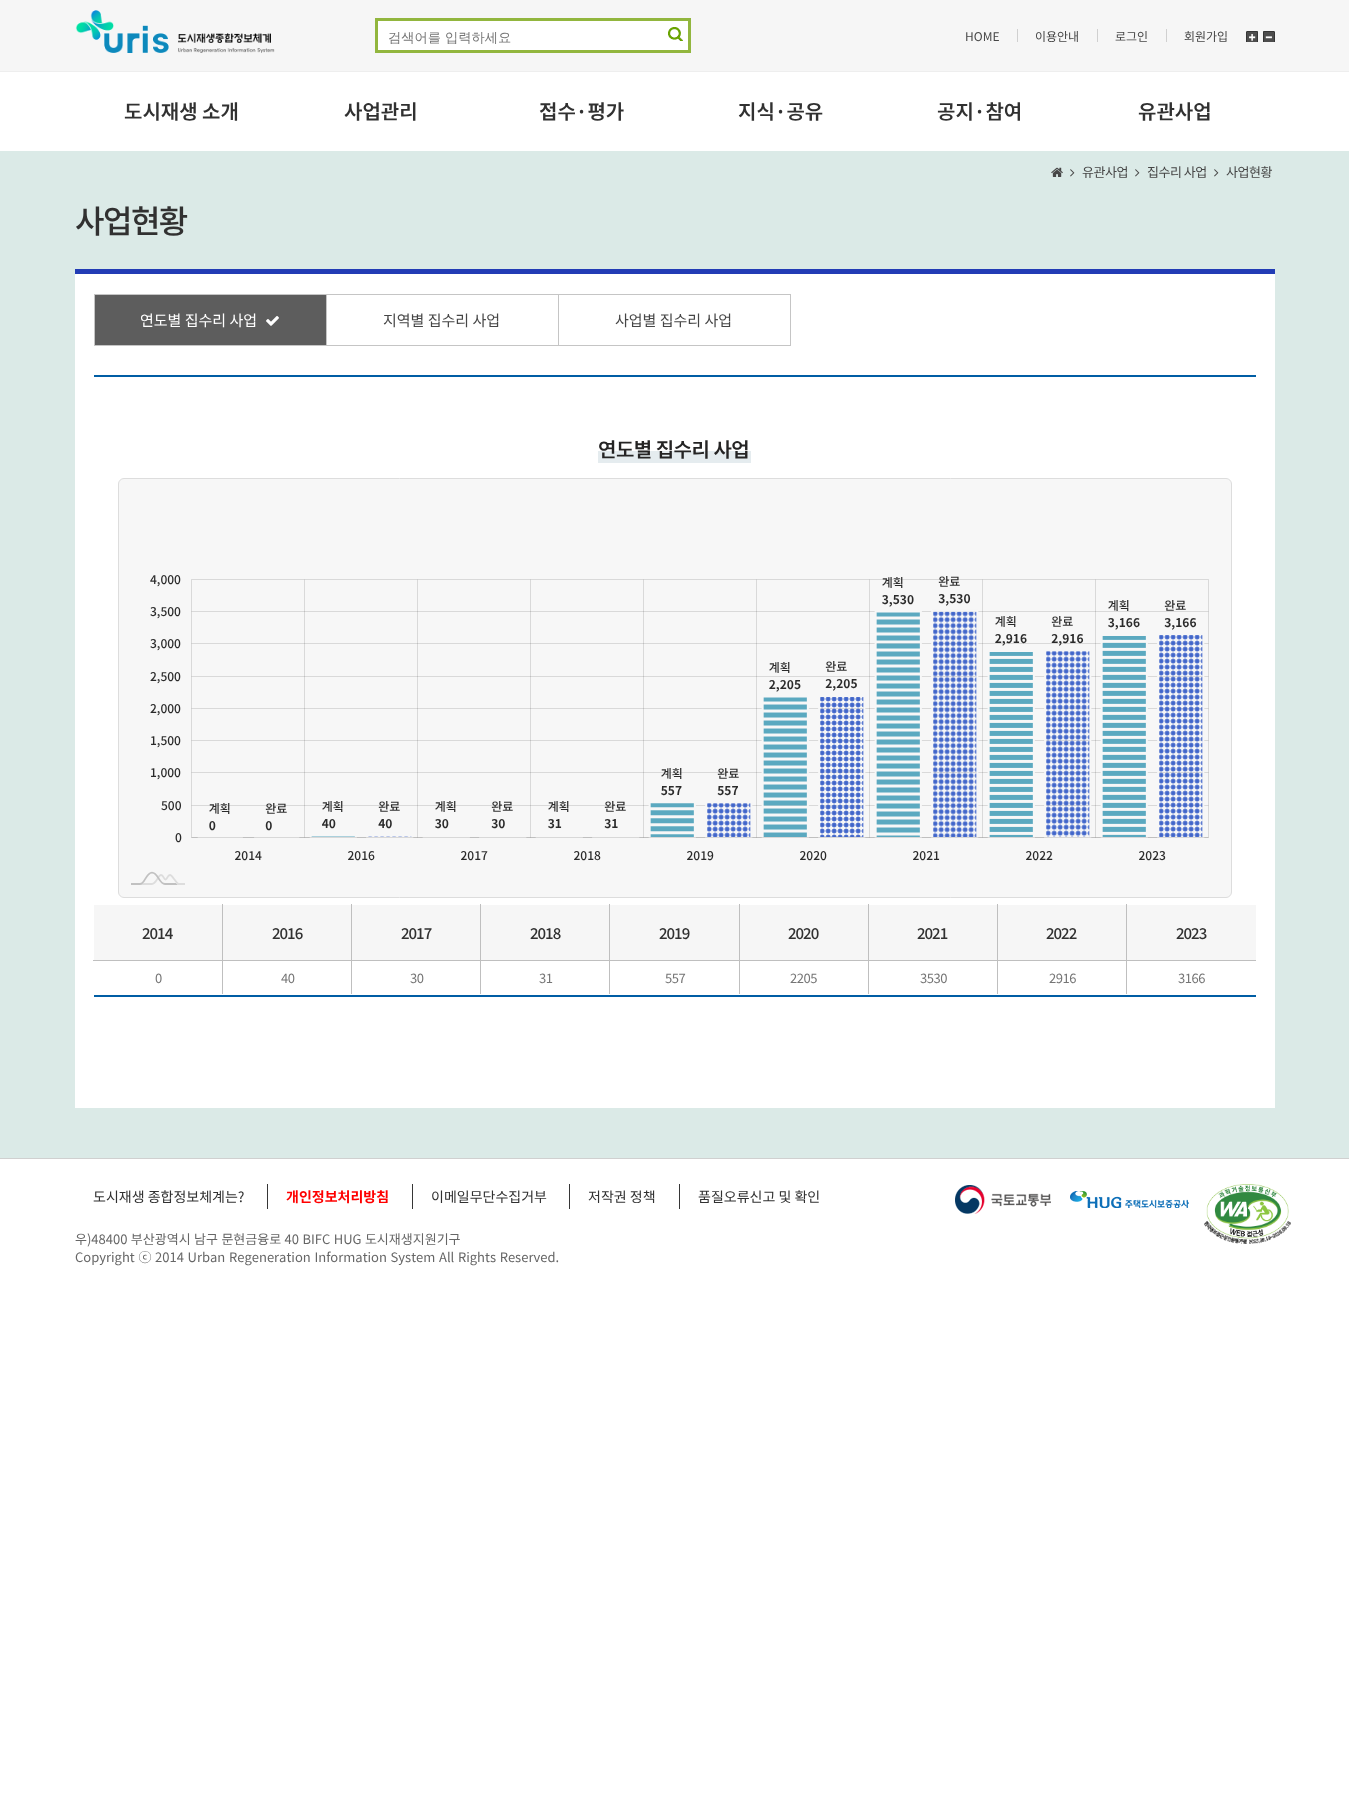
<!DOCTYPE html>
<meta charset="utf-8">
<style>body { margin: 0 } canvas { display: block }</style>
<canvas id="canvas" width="1349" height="1804"></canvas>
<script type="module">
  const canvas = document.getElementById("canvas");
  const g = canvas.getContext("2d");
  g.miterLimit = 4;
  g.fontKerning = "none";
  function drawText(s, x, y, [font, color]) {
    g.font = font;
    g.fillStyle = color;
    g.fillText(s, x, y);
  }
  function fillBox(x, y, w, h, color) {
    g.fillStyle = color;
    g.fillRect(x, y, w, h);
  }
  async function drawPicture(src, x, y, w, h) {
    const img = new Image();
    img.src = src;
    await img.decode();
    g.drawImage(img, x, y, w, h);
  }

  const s1 = ["500 13.25px WenQuanYi Zen Hei", "#757575"];
  const s2 = ["12px Noto Sans KR", "#464646"];
  const s3 = ["600 20px Noto Sans KR", "#313131"];
  const s4 = ["13px Noto Sans KR", "#464646"];
  const s5 = ["500 32px Noto Sans KR", "#313131"];
  const s6 = ["15px Noto Sans KR", "#FFFFFF"];
  const s7 = ["15px Noto Sans KR", "#464646"];
  const s8 = ["600 20px Noto Sans KR", "#252424"];
  const s9 = ["500 15px Noto Sans KR", "#313131"];
  const s10 = ["13px Noto Sans KR", "#757575"];
  const s11 = ["14px Noto Sans KR", "#313131"];
  const s12 = ["bold 14px Noto Sans KR", "#FF0000"];
  const s13 = ["13px Noto Sans KR", "#666666"];

  fillBox(0, 0, 1349, 1804, "#FFFFFF");
  fillBox(0, 0, 1349, 71, "#F6F6F6");
  fillBox(0, 71, 1349, 1, "#EEEEEE");
  await drawPicture("pic1.png", 75, 10, 200, 43);
  g.fillStyle = "#FFFFFF";
  g.beginPath();
  g.rect(376.5, 19.5, 313, 32);
  g.fill();
  g.strokeStyle = "#92B63E";
  g.lineWidth = 3;
  g.stroke();
  drawText("검색어를 입력하세요", 388, 42, s1);
  await drawPicture("pic2.png", 668, 27, 15, 14);
  drawText("HOME", 965, 41, s2);
  fillBox(1017, 29, 1, 13, "#D0D0D0");
  drawText("이용안내", 1035, 41, s2);
  fillBox(1097, 29, 1, 13, "#D0D0D0");
  drawText("로그인", 1115, 41, s2);
  fillBox(1166, 29, 1, 13, "#D0D0D0");
  drawText("회원가입", 1184, 41, s2);
  await drawPicture("pic3.png", 1246, 31, 12, 11);
  await drawPicture("pic4.png", 1263, 31, 12, 11);
  drawText("도시재생 소개", 124, 119, s3);
  drawText("사업관리", 344, 119, s3);
  drawText("접수·평가", 539, 119, s3);
  drawText("지식·공유", 738, 119, s3);
  drawText("공지·참여", 937, 119, s3);
  drawText("유관사업", 1138, 119, s3);
  fillBox(0, 151, 1349, 1007, "#DBEAE7");
  await drawPicture("pic5.png", 1051, 167, 12, 10);
  await drawPicture("pic6.png", 1070, 169, 5, 8);
  g.letterSpacing = "-0.5px";
  drawText("유관사업", 1082, 177, s4);
  await drawPicture("pic6.png", 1135, 169, 5, 8);
  drawText("집수리 사업", 1147, 177, s4);
  await drawPicture("pic6.png", 1214, 169, 5, 8);
  drawText("사업현황", 1226, 177, s4);
  g.letterSpacing = "-1.5px";
  drawText("사업현황", 75, 233, s5);
  fillBox(75, 274, 1200, 834, "#FFFFFF");
  fillBox(75, 269, 1200, 5, "#223CB5");
  fillBox(94, 294, 1, 52, "#C5C5C5");
  fillBox(95, 294, 696, 1, "#C5C5C5");
  fillBox(326, 294, 1, 52, "#C5C5C5");
  fillBox(95, 345, 232, 1, "#C5C5C5");
  fillBox(95, 295, 231, 50, "#5D5D5D");
  g.letterSpacing = "0px";
  drawText("연도별 집수리 사업", 140, 326, s6);
  await drawPicture("pic7.png", 266, 316, 13, 10);
  fillBox(558, 294, 1, 52, "#C5C5C5");
  fillBox(327, 345, 232, 1, "#C5C5C5");
  drawText("지역별 집수리 사업", 383, 326, s7);
  fillBox(790, 294, 1, 52, "#C5C5C5");
  fillBox(559, 345, 232, 1, "#C5C5C5");
  drawText("사업별 집수리 사업", 615, 326, s7);
  fillBox(94, 375, 1162, 2, "#005DA4");
  fillBox(94, 995, 1162, 2, "#005DA4");
  fillBox(598, 451, 153, 12, "#E5ECEF");
  g.letterSpacing = "-0.5px";
  drawText("연도별 집수리 사업", 598, 457, s8);
  g.fillStyle = "#F7F7F7";
  g.beginPath();
  g.roundRect(118.5, 478.5, 1113, 419, 5.5);
  g.fill();
  g.strokeStyle = "#DDDDDD";
  g.lineWidth = 1;
  g.stroke();
  await drawPicture("pic8.png", 131, 575, 1078, 310);
  fillBox(94, 905, 128, 55, "#F6F6F6");
  fillBox(1126, 960, 1, 34, "#BFBFBF");
  fillBox(1126, 960, 130, 1, "#BFBFBF");
  fillBox(1126, 904, 1, 57, "#BFBFBF");
  fillBox(997, 960, 1, 34, "#BFBFBF");
  fillBox(997, 960, 130, 1, "#BFBFBF");
  fillBox(997, 904, 1, 57, "#BFBFBF");
  fillBox(868, 960, 1, 34, "#BFBFBF");
  fillBox(868, 960, 130, 1, "#BFBFBF");
  fillBox(868, 904, 1, 57, "#BFBFBF");
  fillBox(739, 960, 1, 34, "#BFBFBF");
  fillBox(739, 960, 130, 1, "#BFBFBF");
  fillBox(739, 904, 1, 57, "#BFBFBF");
  fillBox(609, 960, 1, 34, "#BFBFBF");
  fillBox(609, 960, 131, 1, "#BFBFBF");
  fillBox(609, 904, 1, 57, "#BFBFBF");
  fillBox(480, 960, 1, 34, "#BFBFBF");
  fillBox(480, 960, 130, 1, "#BFBFBF");
  fillBox(480, 904, 1, 57, "#BFBFBF");
  fillBox(351, 960, 1, 34, "#BFBFBF");
  fillBox(351, 960, 130, 1, "#BFBFBF");
  fillBox(351, 904, 1, 57, "#BFBFBF");
  fillBox(222, 960, 1, 34, "#BFBFBF");
  fillBox(222, 960, 130, 1, "#BFBFBF");
  fillBox(222, 904, 1, 57, "#BFBFBF");
  fillBox(93, 960, 130, 1, "#BFBFBF");
  g.letterSpacing = "-1px";
  drawText("2014", 142, 939, s9);
  fillBox(223, 905, 128, 55, "#F6F6F6");
  drawText("2016", 272, 939, s9);
  fillBox(352, 905, 128, 55, "#F6F6F6");
  drawText("2017", 401, 939, s9);
  fillBox(481, 905, 128, 55, "#F6F6F6");
  drawText("2018", 530, 939, s9);
  fillBox(610, 905, 129, 55, "#F6F6F6");
  drawText("2019", 659, 939, s9);
  fillBox(740, 905, 128, 55, "#F6F6F6");
  drawText("2020", 788, 939, s9);
  fillBox(869, 905, 128, 55, "#F6F6F6");
  drawText("2021", 917, 939, s9);
  fillBox(998, 905, 128, 55, "#F6F6F6");
  drawText("2022", 1046, 939, s9);
  fillBox(1127, 905, 129, 55, "#F6F6F6");
  drawText("2023", 1176, 939, s9);
  g.letterSpacing = "-0.5px";
  drawText("0", 155, 983, s10);
  drawText("40", 281, 983, s10);
  drawText("30", 410, 983, s10);
  drawText("31", 539, 983, s10);
  drawText("557", 665, 983, s10);
  drawText("2205", 790, 983, s10);
  drawText("3530", 920, 983, s10);
  drawText("2916", 1049, 983, s10);
  drawText("3166", 1178, 983, s10);
  fillBox(0, 1158, 1349, 1, "#D0D0D0");
  g.letterSpacing = "0px";
  drawText("도시재생 종합정보체계는?", 93, 1202, s11);
  fillBox(267, 1184, 1, 25, "#363636");
  drawText("개인정보처리방침", 286, 1202, s12);
  fillBox(412, 1184, 1, 25, "#363636");
  drawText("이메일무단수집거부", 431, 1202, s11);
  fillBox(569, 1184, 1, 25, "#363636");
  drawText("저작권 정책", 588, 1202, s11);
  fillBox(679, 1184, 1, 25, "#363636");
  drawText("품질오류신고 및 확인", 698, 1202, s11);
  g.wordSpacing = "0.5px";
  drawText("우)48400 부산광역시 남구 문현금융로 40 BIFC HUG 도시재생지원기구", 75, 1244, s13);
  g.wordSpacing = "0.75px";
  drawText("Copyright ⓒ 2014 Urban Regeneration Information System All Rights Reserved.", 75, 1262, s13);
  await drawPicture("pic9.png", 955, 1185, 96, 29);
  await drawPicture("pic10.png", 1070, 1191, 119, 17);
  await drawPicture("pic11.png", 1204, 1184, 87, 60);
</script>
